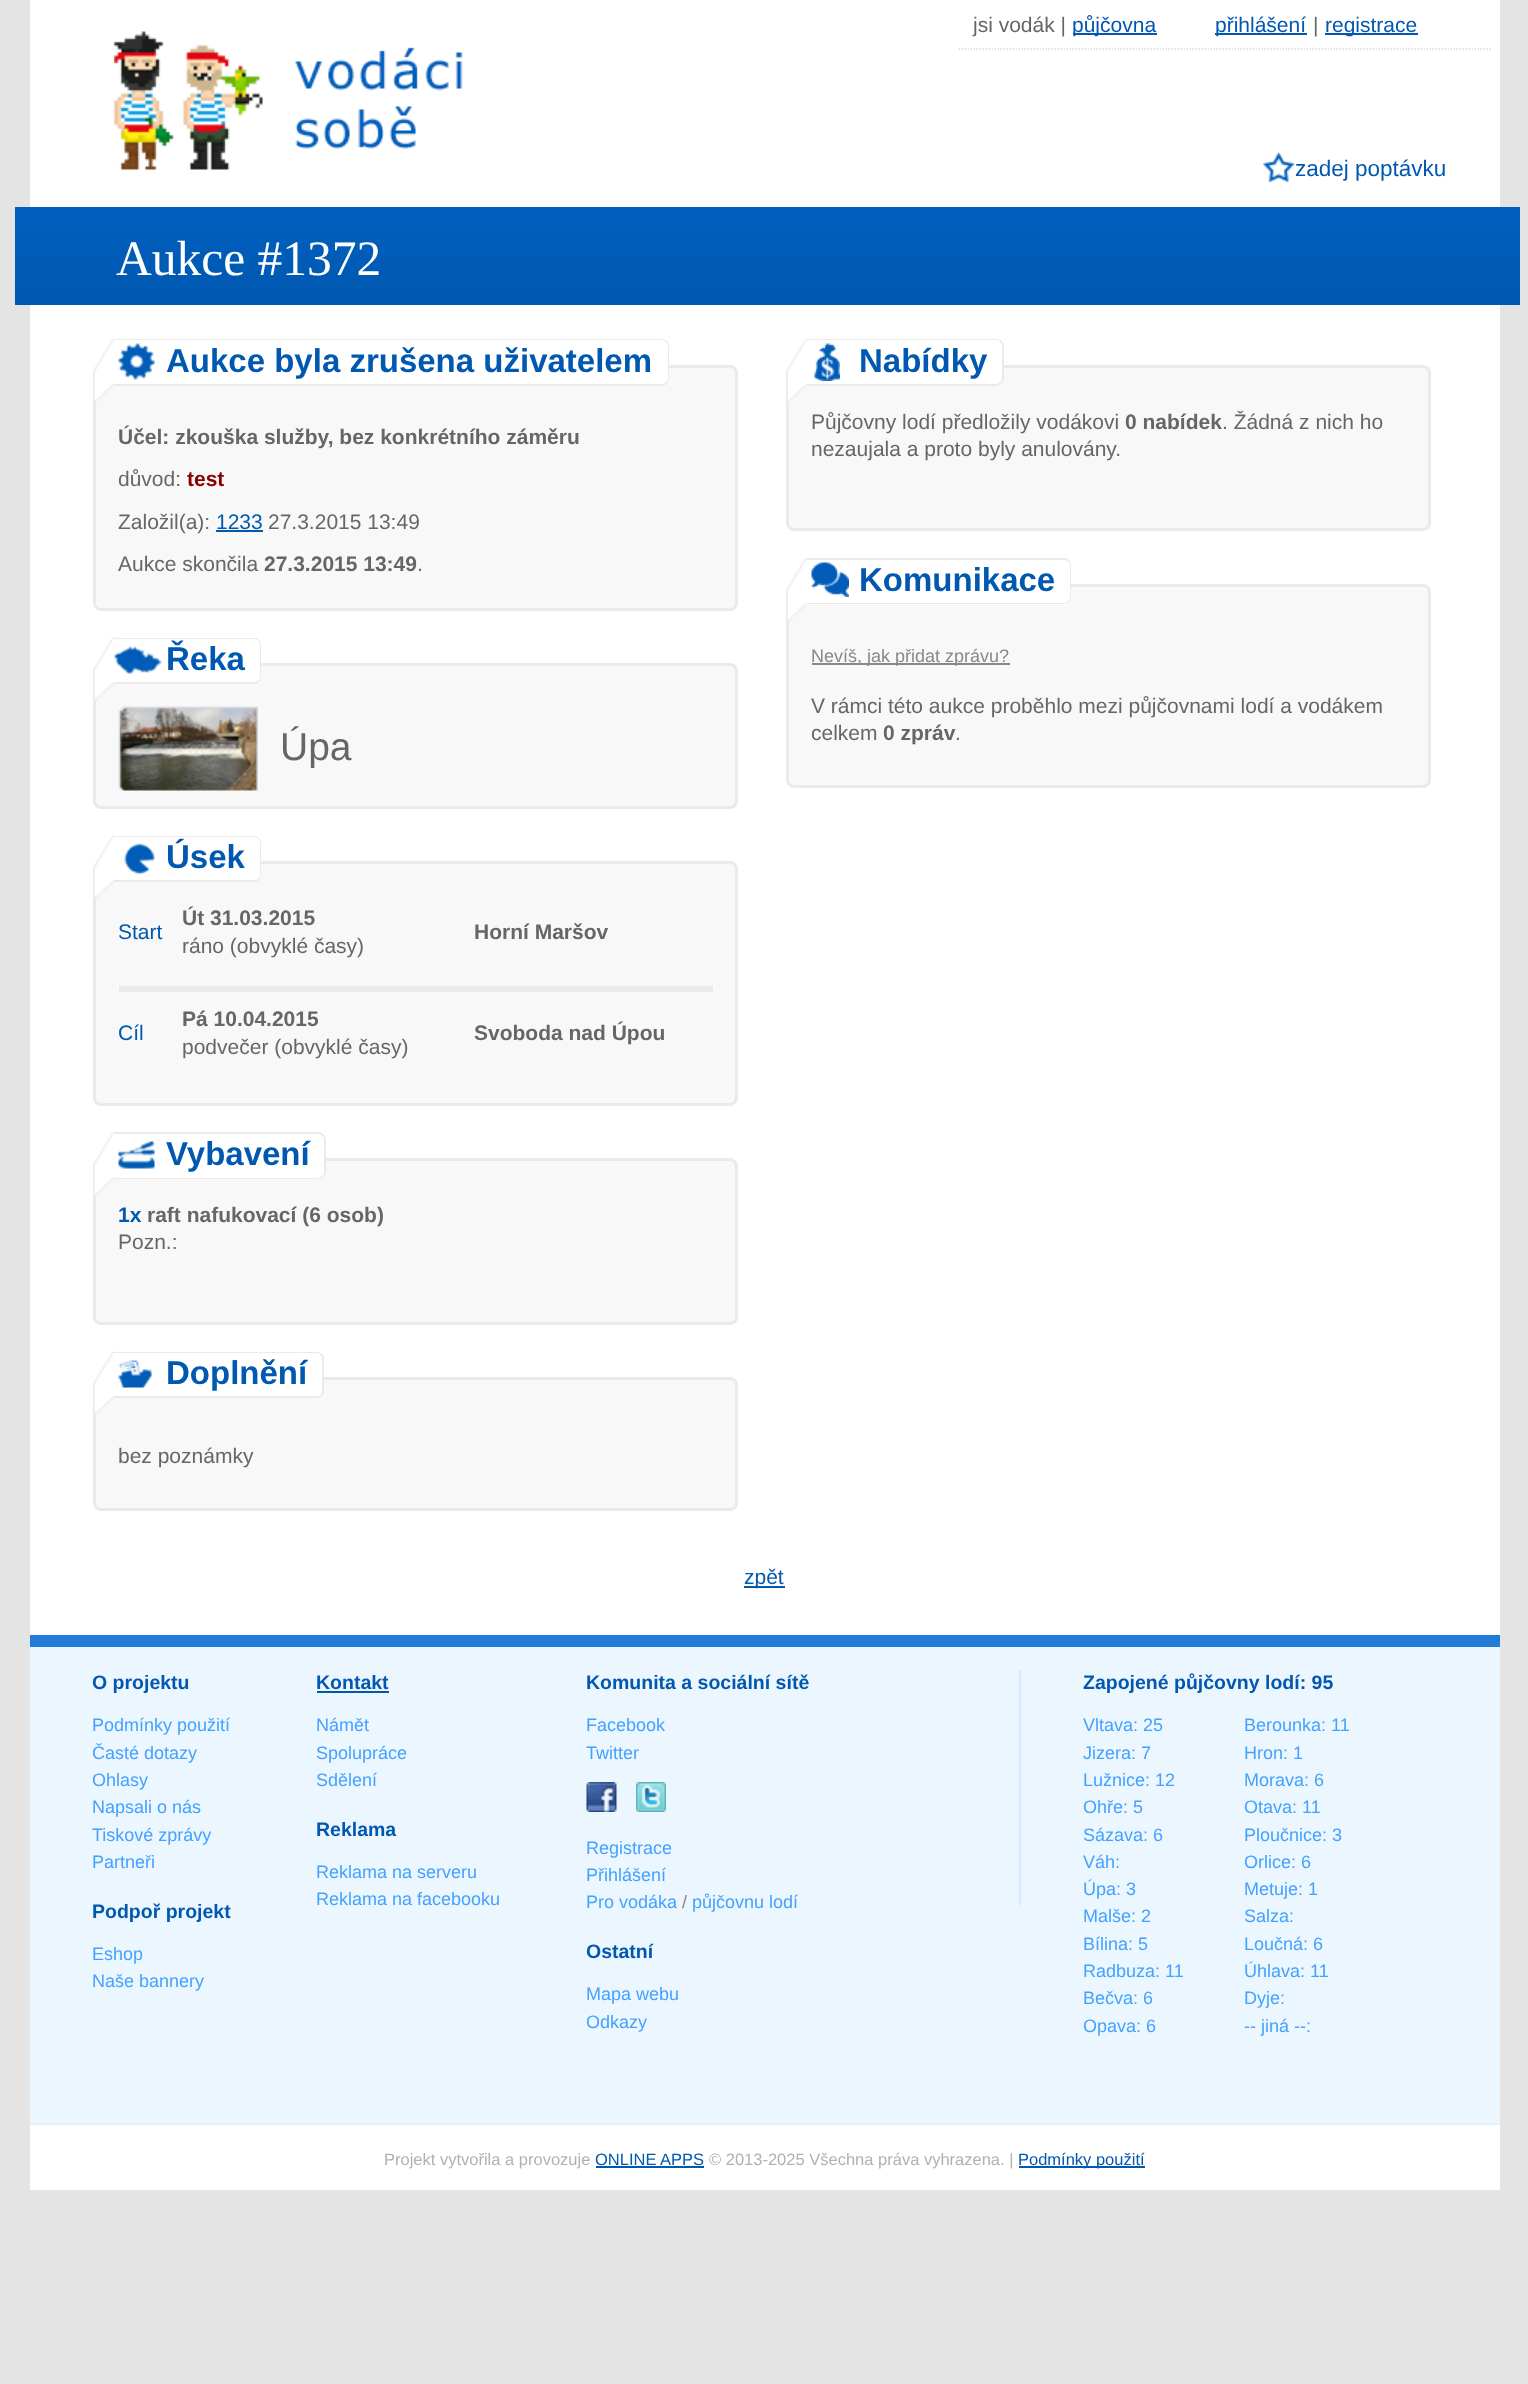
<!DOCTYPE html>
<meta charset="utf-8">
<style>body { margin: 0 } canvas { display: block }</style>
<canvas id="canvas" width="1528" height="2384"></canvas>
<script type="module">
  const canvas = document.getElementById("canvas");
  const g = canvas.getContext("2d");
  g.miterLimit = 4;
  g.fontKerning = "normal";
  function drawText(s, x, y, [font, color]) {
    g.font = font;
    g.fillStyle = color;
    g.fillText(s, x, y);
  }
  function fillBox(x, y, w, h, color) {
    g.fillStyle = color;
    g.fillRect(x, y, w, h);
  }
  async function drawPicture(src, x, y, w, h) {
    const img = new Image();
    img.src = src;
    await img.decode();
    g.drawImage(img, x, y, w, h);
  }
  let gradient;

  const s1 = ["21px Liberation Sans", "#666666"];
  const s2 = ["21px Liberation Sans", "#0058B1"];
  const s3 = ["22.5px Liberation Sans", "#0058B1"];
  const s4 = ["49.5px Liberation Serif", "#FFFFFF"];
  const s5 = ["bold 33px Liberation Sans", "#0058B1"];
  const s6 = ["bold 21px Liberation Sans", "#666666"];
  const s7 = ["bold 21px Liberation Sans", "#880000"];
  const s8 = ["39px Liberation Sans", "#666666"];
  const s9 = ["bold 21px Liberation Sans", "#0058B1"];
  const s10 = ["18px Liberation Sans", "#888888"];
  const s11 = ["bold 19.5px Liberation Sans", "#0058B1"];
  const s12 = ["18px Liberation Sans", "#44A2FF"];
  const s13 = ["16.5px Liberation Sans", "#B1B1B1"];
  const s14 = ["16.5px Liberation Sans", "#0058B1"];

  fillBox(0, 0, 1528, 2384, "#E4E4E4");
  fillBox(30, 0, 1470, 1635, "#FFFFFF");
  g.beginPath();
  g.moveTo(958.5, 49);
  g.lineTo(1492.5, 49);
  g.strokeStyle = "#DADADA";
  g.lineWidth = 1.5;
  g.setLineDash([1.5, 1.5]);
  g.stroke();
  drawText("jsi vodák |", 973, 32, s1);
  fillBox(1073, 33, 84, 2, "#0058B1");
  drawText("půjčovna", 1072, 32, s2);
  fillBox(1215, 33, 92, 2, "#0058B1");
  drawText("přihlášení", 1215, 32, s2);
  drawText("|", 1313, 32, s1);
  fillBox(1325, 33, 93, 2, "#0058B1");
  drawText("registrace", 1325, 32, s2);
  await drawPicture("pic1.png", 113, 31, 350, 139);
  await drawPicture("pic2.png", 1263, 151, 32, 34);
  drawText("zadej poptávku", 1295, 176, s3);
  gradient = g.createLinearGradient(767, 207, 767, 305);
  gradient.addColorStop(0, "#0060BF");
  gradient.addColorStop(1, "#0058B0");
  g.fillStyle = gradient;
  g.fillRect(15, 207, 1505, 98);
  drawText("Aukce #1372", 116, 275, s4);
  g.fillStyle = "#F8F8F8";
  g.beginPath();
  g.roundRect(94.5, 366.5, 642, 243, 6.5);
  g.fill();
  g.strokeStyle = "#EAEAEA";
  g.lineWidth = 3;
  g.setLineDash([]);
  g.stroke();
  await drawPicture("pic3.png", 93, 339, 22, 63);
  g.fillStyle = "#FFFFFF";
  g.beginPath();
  g.roundRect(114, 339, 555, 47, [0, 8, 8, 0]);
  g.fill();
  await drawPicture("pic4.png", 118, 343, 37, 37);
  g.fillStyle = "#EAEAEA";
  g.beginPath();
  g.moveTo(114, 339);
  g.lineTo(662, 339);
  g.bezierCurveTo(666, 339, 669, 342, 669, 346);
  g.lineTo(669, 378);
  g.bezierCurveTo(669, 382, 666, 386, 662, 386);
  g.lineTo(114, 386);
  g.closePath();
  g.moveTo(114, 340);
  g.lineTo(662, 340);
  g.bezierCurveTo(665, 340, 668, 343, 668, 346);
  g.lineTo(668, 378);
  g.bezierCurveTo(668, 381, 665, 384, 662, 384);
  g.lineTo(114, 384);
  g.closePath();
  g.fill("evenodd");
  drawText("Aukce byla zrušena uživatelem", 166, 372, s5);
  drawText("Účel: zkouška služby, bez konkrétního záměru", 118, 444, s6);
  drawText("důvod:", 118, 486, s1);
  drawText("test", 187, 486, s7);
  drawText("Založil(a):", 118, 529, s1);
  drawText("1233", 216, 529, s2);
  fillBox(216, 530, 47, 2, "#0058B1");
  drawText("27.3.2015 13:49", 268, 529, s1);
  drawText("Aukce skončila", 118, 571, s1);
  drawText("27.3.2015 13:49", 264, 571, s6);
  drawText(".", 417, 571, s1);
  g.fillStyle = "#F8F8F8";
  g.beginPath();
  g.roundRect(94.5, 664.5, 642, 143, 6.5);
  g.fill();
  g.stroke();
  await drawPicture("pic5.png", 94, 637, 22, 64);
  g.fillStyle = "#FFFFFF";
  g.beginPath();
  g.roundRect(114, 638, 147, 46, [0, 8, 8, 0]);
  g.fill();
  await drawPicture("pic6.png", 114, 646, 48, 28);
  g.fillStyle = "#EAEAEA";
  g.beginPath();
  g.moveTo(114, 638);
  g.lineTo(254, 638);
  g.bezierCurveTo(258, 638, 261, 641, 261, 645);
  g.lineTo(261, 676);
  g.bezierCurveTo(261, 681, 258, 684, 254, 684);
  g.lineTo(114, 684);
  g.closePath();
  g.moveTo(114, 639);
  g.lineTo(254, 639);
  g.bezierCurveTo(257, 639, 260, 642, 260, 645);
  g.lineTo(260, 676);
  g.bezierCurveTo(260, 680, 257, 682, 254, 682);
  g.lineTo(114, 682);
  g.closePath();
  g.fill("evenodd");
  drawText("Řeka", 166, 670, s5);
  await drawPicture("pic7.png", 118, 706, 140, 85);
  drawText("Úpa", 280, 760, s8);
  g.fillStyle = "#F8F8F8";
  g.beginPath();
  g.roundRect(94.5, 862.5, 642, 242, 6.5);
  g.fill();
  g.stroke();
  await drawPicture("pic5.png", 94, 835, 22, 64);
  g.fillStyle = "#FFFFFF";
  g.beginPath();
  g.roundRect(114, 836, 147, 46, [0, 8, 8, 0]);
  g.fill();
  await drawPicture("pic8.png", 124, 843, 31, 32);
  g.fillStyle = "#EAEAEA";
  g.beginPath();
  g.moveTo(114, 836);
  g.lineTo(254, 836);
  g.bezierCurveTo(258, 836, 261, 839, 261, 843);
  g.lineTo(261, 874);
  g.bezierCurveTo(261, 879, 258, 882, 254, 882);
  g.lineTo(114, 882);
  g.closePath();
  g.moveTo(114, 837);
  g.lineTo(254, 837);
  g.bezierCurveTo(257, 837, 260, 840, 260, 843);
  g.lineTo(260, 874);
  g.bezierCurveTo(260, 878, 257, 880, 254, 880);
  g.lineTo(114, 880);
  g.closePath();
  g.fill("evenodd");
  drawText("Úsek", 166, 868, s5);
  drawText("Start", 118, 939, s2);
  drawText("Út 31.03.2015", 182, 925, s6);
  drawText("ráno (obvyklé časy)", 182, 953, s1);
  drawText("Horní Maršov", 474, 939, s6);
  fillBox(119, 986, 594, 6, "#EAEAEA");
  drawText("Cíl", 118, 1040, s2);
  drawText("Pá 10.04.2015", 182, 1026, s6);
  drawText("podvečer (obvyklé časy)", 182, 1054, s1);
  drawText("Svoboda nad Úpou", 474, 1040, s6);
  g.fillStyle = "#F8F8F8";
  g.beginPath();
  g.roundRect(94.5, 1159.5, 642, 164, 6.5);
  g.fill();
  g.stroke();
  await drawPicture("pic5.png", 94, 1132, 22, 64);
  g.fillStyle = "#FFFFFF";
  g.beginPath();
  g.roundRect(114, 1133, 212, 46, [0, 8, 8, 0]);
  g.fill();
  await drawPicture("pic9.png", 118, 1141, 37, 28);
  g.fillStyle = "#EAEAEA";
  g.beginPath();
  g.moveTo(114, 1132);
  g.lineTo(318, 1132);
  g.bezierCurveTo(322, 1132, 326, 1136, 326, 1140);
  g.lineTo(326, 1172);
  g.bezierCurveTo(326, 1176, 322, 1179, 318, 1179);
  g.lineTo(114, 1179);
  g.closePath();
  g.moveTo(114, 1134);
  g.lineTo(318, 1134);
  g.bezierCurveTo(321, 1134, 324, 1137, 324, 1140);
  g.lineTo(324, 1172);
  g.bezierCurveTo(324, 1175, 321, 1178, 318, 1178);
  g.lineTo(114, 1178);
  g.closePath();
  g.fill("evenodd");
  drawText("Vybavení", 166, 1165, s5);
  drawText("1x", 118, 1222, s9);
  drawText("raft nafukovací (6 osob)", 147, 1222, s6);
  drawText("Pozn.:", 118, 1249, s1);
  g.fillStyle = "#F8F8F8";
  g.beginPath();
  g.roundRect(94.5, 1378.5, 642, 131, 6.5);
  g.fill();
  g.stroke();
  await drawPicture("pic5.png", 94, 1351, 22, 64);
  g.fillStyle = "#FFFFFF";
  g.beginPath();
  g.roundRect(114, 1352, 210, 46, [0, 8, 8, 0]);
  g.fill();
  await drawPicture("pic10.png", 118, 1360, 34, 28);
  g.fillStyle = "#EAEAEA";
  g.beginPath();
  g.moveTo(114, 1352);
  g.lineTo(316, 1352);
  g.bezierCurveTo(321, 1352, 324, 1355, 324, 1359);
  g.lineTo(324, 1390);
  g.bezierCurveTo(324, 1395, 321, 1398, 316, 1398);
  g.lineTo(114, 1398);
  g.closePath();
  g.moveTo(114, 1353);
  g.lineTo(316, 1353);
  g.bezierCurveTo(320, 1353, 322, 1356, 322, 1359);
  g.lineTo(322, 1390);
  g.bezierCurveTo(322, 1394, 320, 1396, 316, 1396);
  g.lineTo(114, 1396);
  g.closePath();
  g.fill("evenodd");
  drawText("Doplnění", 166, 1384, s5);
  drawText("bez poznámky", 118, 1463, s1);
  g.fillStyle = "#F8F8F8";
  g.beginPath();
  g.roundRect(787.5, 366.5, 642, 163, 6.5);
  g.fill();
  g.stroke();
  await drawPicture("pic3.png", 786, 339, 22, 63);
  g.fillStyle = "#FFFFFF";
  g.beginPath();
  g.roundRect(807, 339, 197, 47, [0, 8, 8, 0]);
  g.fill();
  await drawPicture("pic11.png", 814, 343, 26, 38);
  g.fillStyle = "#EAEAEA";
  g.beginPath();
  g.moveTo(807, 339);
  g.lineTo(996, 339);
  g.bezierCurveTo(1000, 339, 1004, 342, 1004, 346);
  g.lineTo(1004, 378);
  g.bezierCurveTo(1004, 382, 1000, 386, 996, 386);
  g.lineTo(807, 386);
  g.closePath();
  g.moveTo(807, 340);
  g.lineTo(996, 340);
  g.bezierCurveTo(999, 340, 1002, 343, 1002, 346);
  g.lineTo(1002, 378);
  g.bezierCurveTo(1002, 381, 999, 384, 996, 384);
  g.lineTo(807, 384);
  g.closePath();
  g.fill("evenodd");
  drawText("Nabídky", 859, 372, s5);
  drawText("Půjčovny lodí předložily vodákovi", 811, 429, s1);
  drawText("0 nabídek", 1125, 429, s6);
  drawText(". Žádná z nich ho", 1222, 429, s1);
  drawText("nezaujala a proto byly anulovány.", 811, 456, s1);
  g.fillStyle = "#F8F8F8";
  g.beginPath();
  g.roundRect(787.5, 585.5, 642, 201, 6.5);
  g.fill();
  g.stroke();
  await drawPicture("pic3.png", 786, 558, 22, 63);
  g.fillStyle = "#FFFFFF";
  g.beginPath();
  g.roundRect(807, 558, 264, 47, [0, 8, 8, 0]);
  g.fill();
  await drawPicture("pic12.png", 811, 562, 38, 35);
  g.fillStyle = "#EAEAEA";
  g.beginPath();
  g.moveTo(807, 558);
  g.lineTo(1064, 558);
  g.bezierCurveTo(1068, 558, 1071, 561, 1071, 566);
  g.lineTo(1071, 597);
  g.bezierCurveTo(1071, 601, 1068, 604, 1064, 604);
  g.lineTo(807, 604);
  g.closePath();
  g.moveTo(807, 560);
  g.lineTo(1064, 560);
  g.bezierCurveTo(1067, 560, 1070, 562, 1070, 566);
  g.lineTo(1070, 597);
  g.bezierCurveTo(1070, 600, 1067, 603, 1064, 603);
  g.lineTo(807, 603);
  g.closePath();
  g.fill("evenodd");
  drawText("Komunikace", 859, 591, s5);
  fillBox(812, 663, 198, 2, "#888888");
  drawText("Nevíš, jak přidat zprávu?", 811, 662, s10);
  drawText("V rámci této aukce proběhlo mezi půjčovnami lodí a vodákem", 811, 713, s1);
  drawText("celkem", 811, 740, s1);
  drawText("0 zpráv", 883, 740, s6);
  drawText(".", 955, 740, s1);
  fillBox(744, 1586, 41, 2, "#0058B1");
  drawText("zpět", 744, 1584, s2);
  fillBox(30, 1647, 1470, 476, "#ECF6FF");
  fillBox(30, 1635, 1470, 12, "#217CD7");
  drawText("O projektu", 92, 1689, s11);
  drawText("Podmínky použití", 92, 1731, s12);
  drawText("Časté dotazy", 92, 1759, s12);
  drawText("Ohlasy", 92, 1786, s12);
  drawText("Napsali o nás", 92, 1813, s12);
  drawText("Tiskové zprávy", 92, 1841, s12);
  drawText("Partneři", 92, 1868, s12);
  drawText("Podpoř projekt", 92, 1918, s11);
  drawText("Eshop", 92, 1960, s12);
  drawText("Naše bannery", 92, 1987, s12);
  drawText("Kontakt", 316, 1689, s11);
  fillBox(317, 1691, 72, 2, "#0058B1");
  drawText("Námět", 316, 1731, s12);
  drawText("Spolupráce", 316, 1759, s12);
  drawText("Sdělení", 316, 1786, s12);
  drawText("Reklama", 316, 1836, s11);
  drawText("Reklama na serveru", 316, 1878, s12);
  drawText("Reklama na facebooku", 316, 1905, s12);
  drawText("Komunita a sociální sítě", 586, 1689, s11);
  drawText("Facebook", 586, 1731, s12);
  drawText("Twitter", 586, 1759, s12);
  await drawPicture("pic13.png", 586, 1782, 31, 30);
  await drawPicture("pic14.png", 636, 1782, 30, 30);
  drawText("Registrace", 586, 1854, s12);
  drawText("Přihlášení", 586, 1881, s12);
  drawText("Pro vodáka", 586, 1908, s12);
  drawText("/", 682, 1908, s10);
  drawText("půjčovnu lodí", 692, 1908, s12);
  drawText("Ostatní", 586, 1958, s11);
  drawText("Mapa webu", 586, 2000, s12);
  drawText("Odkazy", 586, 2028, s12);
  fillBox(1019, 1670, 2, 235, "#D3E9FF");
  drawText("Zapojené půjčovny lodí: 95", 1083, 1689, s11);
  drawText("Vltava: 25", 1083, 1731, s12);
  drawText("Berounka: 11", 1244, 1731, s12);
  drawText("Jizera: 7", 1083, 1759, s12);
  drawText("Hron: 1", 1244, 1759, s12);
  drawText("Lužnice: 12", 1083, 1786, s12);
  drawText("Morava: 6", 1244, 1786, s12);
  drawText("Ohře: 5", 1083, 1813, s12);
  drawText("Otava: 11", 1244, 1813, s12);
  drawText("Sázava: 6", 1083, 1841, s12);
  drawText("Ploučnice: 3", 1244, 1841, s12);
  drawText("Váh:", 1083, 1868, s12);
  drawText("Orlice: 6", 1244, 1868, s12);
  drawText("Úpa: 3", 1083, 1895, s12);
  drawText("Metuje: 1", 1244, 1895, s12);
  drawText("Malše: 2", 1083, 1922, s12);
  drawText("Salza:", 1244, 1922, s12);
  drawText("Bílina: 5", 1083, 1950, s12);
  drawText("Loučná: 6", 1244, 1950, s12);
  drawText("Radbuza: 11", 1083, 1977, s12);
  drawText("Úhlava: 11", 1244, 1977, s12);
  drawText("Bečva: 6", 1083, 2004, s12);
  drawText("Dyje:", 1244, 2004, s12);
  drawText("Opava: 6", 1083, 2032, s12);
  drawText("-- jiná --:", 1244, 2032, s12);
  fillBox(30, 2125, 1470, 65, "#FFFFFF");
  fillBox(30, 2123, 1470, 2, "#E3F1FF");
  drawText("Projekt vytvořila a provozuje", 384, 2165, s13);
  drawText("ONLINE APPS", 595, 2165, s14);
  fillBox(596, 2166, 108, 2, "#0058B1");
  drawText("© 2013-2025 Všechna práva vyhrazena. |", 709, 2165, s13);
  fillBox(1019, 2166, 126, 2, "#0058B1");
  drawText("Podmínky použití", 1018, 2165, s14);
</script>
